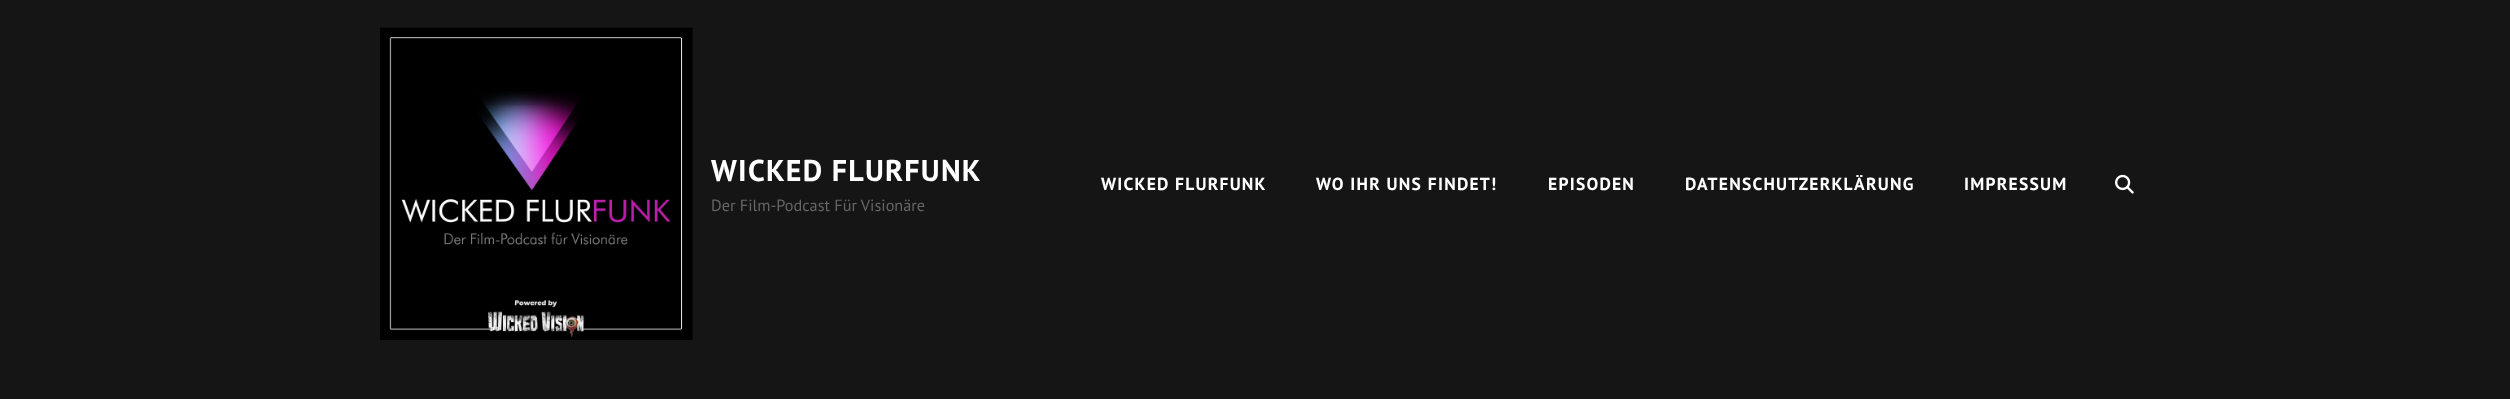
<!DOCTYPE html>
<meta charset="utf-8">
<style>body { margin: 0 } canvas { display: block }</style>
<canvas id="canvas" width="2510" height="399"></canvas>
<script type="module">
  const canvas = document.getElementById("canvas");
  const g = canvas.getContext("2d");
  g.miterLimit = 4;
  g.fontKerning = "normal";
  function drawText(s, x, y, [font, color]) {
    g.font = font;
    g.fillStyle = color;
    g.fillText(s, x, y);
  }
  function fillBox(x, y, w, h, color) {
    g.fillStyle = color;
    g.fillRect(x, y, w, h);
  }
  async function drawPicture(src, x, y, w, h) {
    const img = new Image();
    img.src = src;
    await img.decode();
    g.drawImage(img, x, y, w, h);
  }

  const s1 = ["bold 30px PT Sans", "#FFFFFF"];
  const s2 = ["16.25px PT Sans", "#666666"];
  const s3 = ["bold 17.5px PT Sans", "#FFFFFF"];

  fillBox(0, 0, 2510, 399, "#151515");
  await drawPicture("pic1.png", 380, 27, 313, 313);
  g.letterSpacing = "1.25px";
  drawText("WICKED FLURFUNK", 711, 181, s1);
  g.letterSpacing = "0px";
  drawText("Der Film-Podcast Für Visionäre", 711, 211, s2);
  g.letterSpacing = "1.25px";
  drawText("WICKED FLURFUNK", 1101, 190, s3);
  drawText("WO IHR UNS FINDET!", 1316, 190, s3);
  drawText("EPISODEN", 1548, 190, s3);
  drawText("DATENSCHUTZERKLÄRUNG", 1685, 190, s3);
  drawText("IMPRESSUM", 1964, 190, s3);
  await drawPicture("pic2.png", 2115, 174, 19, 20);
</script>
